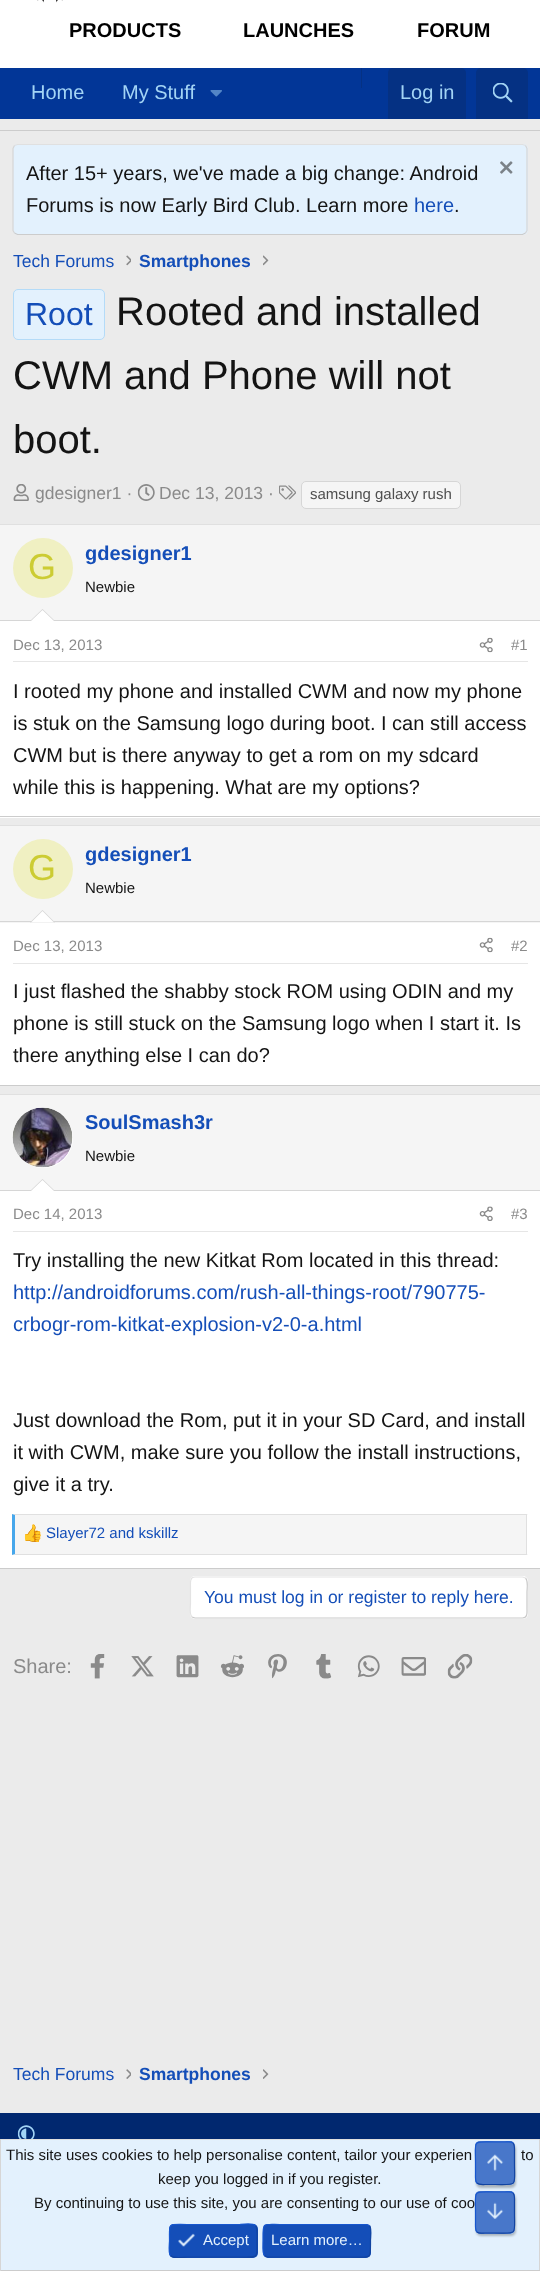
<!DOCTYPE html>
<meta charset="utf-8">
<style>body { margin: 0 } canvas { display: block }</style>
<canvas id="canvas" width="540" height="2271"></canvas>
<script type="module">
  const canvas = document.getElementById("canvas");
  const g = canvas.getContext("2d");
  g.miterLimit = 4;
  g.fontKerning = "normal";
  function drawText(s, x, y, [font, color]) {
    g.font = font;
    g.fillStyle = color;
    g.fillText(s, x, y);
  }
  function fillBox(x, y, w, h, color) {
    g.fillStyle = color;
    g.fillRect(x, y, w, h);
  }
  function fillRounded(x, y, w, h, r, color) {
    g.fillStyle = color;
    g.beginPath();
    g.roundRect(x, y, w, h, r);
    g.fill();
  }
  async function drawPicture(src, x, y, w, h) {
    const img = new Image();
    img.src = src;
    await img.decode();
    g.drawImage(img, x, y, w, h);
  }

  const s1 = ["bold 20px Liberation Sans", "#000000"];
  const s2 = ["20px Liberation Sans", "#A3D4F5"];
  const s3 = ["20px Liberation Sans", "#141414"];
  const s4 = ["20px Liberation Sans", "#144EB8"];
  const s5 = ["17.5px Liberation Sans", "#144EB8"];
  const s6 = ["bold 17.5px Liberation Sans", "#144EB8"];
  const s7 = ["32px Liberation Sans", "#144EB8"];
  const s8 = ["40px Liberation Sans", "#141414"];
  const s9 = ["17.5px Liberation Sans", "#8A8A8A"];
  const s10 = ["15px Liberation Sans", "#4F4F4F"];
  const s11 = ["36px Liberation Sans", "#CCCC33"];
  const s12 = ["bold 20px Liberation Sans", "#144EB8"];
  const s13 = ["15px Liberation Sans", "#141414"];
  const s14 = ["15px Liberation Sans", "#8A8A8A"];
  const s15 = ["15px Liberation Sans", "#144EB8"];
  const s16 = ["20px Liberation Sans", "#8A8A8A"];
  const s17 = ["15px Liberation Sans", "#E3F1FD"];

  fillBox(0, 0, 540, 2271, "#EBEBEB");
  fillBox(0, 0, 540, 68, "#FFFFFF");
  await drawPicture("pic1.png", 37, 0, 26, 3);
  drawText("PRODUCTS", 69, 37, s1);
  drawText("LAUNCHES", 243, 37, s1);
  drawText("FORUM", 417, 37, s1);
  fillBox(0, 68, 540, 51, "#023697");
  drawText("Home", 31, 99, s2);
  drawText("My Stuff", 122, 99, s2);
  await drawPicture("pic2.png", 210, 90, 12, 7);
  fillBox(361, 68, 1, 20, "#053183");
  g.beginPath();
  g.roundRect(388, 68, 78, 51, [5, 5, 0, 0]);
  g.fill();
  drawText("Log in", 400, 99, s2);
  g.fillStyle = "#053183";
  g.beginPath();
  g.roundRect(476, 68, 52, 51, [5, 5, 0, 0]);
  g.fill();
  await drawPicture("pic3.png", 493, 83, 20, 20);
  fillBox(0, 130, 540, 1, "#CCCCCC");
  fillRounded(13, 144, 515, 91, 5, "#E3F1FD");
  g.beginPath();
  g.moveTo(14.5, 145.5);
  g.lineTo(17.5, 144.5);
  g.lineTo(522.5, 144.5);
  g.lineTo(525.5, 145.5);
  g.strokeStyle = "#E0E0E0";
  g.lineWidth = 1.2;
  g.stroke();
  g.beginPath();
  g.moveTo(525.5, 145.5);
  g.lineTo(527, 148.5);
  g.lineTo(527, 230.5);
  g.lineTo(525.5, 233);
  g.strokeStyle = "#D6D6D6";
  g.stroke();
  g.beginPath();
  g.moveTo(525.5, 233);
  g.lineTo(522.5, 234.5);
  g.lineTo(17.5, 234.5);
  g.lineTo(14.5, 233);
  g.strokeStyle = "#CCCCCC";
  g.stroke();
  g.beginPath();
  g.moveTo(14.5, 233);
  g.lineTo(13, 230.5);
  g.lineTo(13, 148.5);
  g.lineTo(14.5, 145.5);
  g.strokeStyle = "#D6D6D6";
  g.stroke();
  drawText("After 15+ years, we've made a big change: Android", 26, 180, s3);
  await drawPicture("pic4.png", 500, 161, 13, 13);
  drawText("Forums is now Early Bird Club. Learn more", 26, 212, s3);
  drawText("here", 414, 212, s4);
  drawText(".", 454, 212, s3);
  drawText("Tech Forums", 13, 267, s5);
  await drawPicture("pic5.png", 126, 255, 5, 11);
  drawText("Smartphones", 139, 267, s6);
  await drawPicture("pic6.png", 263, 255, 6, 11);
  g.fillStyle = "#E3F1FD";
  g.beginPath();
  g.roundRect(13.5, 289.5, 91, 50, 4.5);
  g.fill();
  g.strokeStyle = "#B4DBF8";
  g.lineWidth = 1;
  g.stroke();
  drawText("Root", 25, 325, s7);
  drawText("Rooted and installed", 116, 325, s8);
  drawText("CWM and Phone will not", 13, 389, s8);
  drawText("boot.", 13, 453, s8);
  await drawPicture("pic7.png", 13, 484, 16, 17);
  drawText("gdesigner1 ·", 35, 499, s9);
  await drawPicture("pic8.png", 137, 484, 18, 17);
  drawText("Dec 13, 2013 ·", 159, 499, s9);
  await drawPicture("pic9.png", 279, 485, 17, 15);
  g.fillStyle = "#F5F5F5";
  g.beginPath();
  g.roundRect(301.5, 481.5, 159, 27, 4.5);
  g.fill();
  g.strokeStyle = "#D6D6D6";
  g.stroke();
  drawText("samsung galaxy rush", 310, 499, s10);
  fillBox(0, 621, 540, 197, "#FFFFFF");
  fillBox(0, 524, 540, 1, "#E0E0E0");
  fillBox(0, 816, 540, 1, "#CCCCCC");
  fillBox(0, 525, 540, 95, "#F5F5F5");
  fillBox(0, 620, 540, 1, "#D6D6D6");
  g.fillStyle = "#F0F0C2";
  g.beginPath();
  g.arc(43, 568, 30, 0, Math.PI * 2);
  g.fill();
  drawText("G", 28, 579, s11);
  drawText("gdesigner1", 85, 560, s12);
  drawText("Newbie", 85, 592, s13);
  g.fillStyle = "#D6D6D6";
  g.beginPath();
  g.moveTo(55, 621);
  g.lineTo(30, 621);
  g.lineTo(42.5, 609);
  g.closePath();
  g.fill();
  g.fillStyle = "#FFFFFF";
  g.beginPath();
  g.moveTo(54, 621);
  g.lineTo(31, 621);
  g.lineTo(42.5, 610);
  g.closePath();
  g.fill();
  fillBox(13, 661, 515, 1, "#E6E6E6");
  drawText("Dec 13, 2013", 13, 650, s14);
  await drawPicture("pic10.png", 479, 637, 14, 16);
  drawText("#1", 511, 650, s14);
  drawText("I rooted my phone and installed CWM and now my phone", 13, 698, s3);
  drawText("is stuk on the Samsung logo during boot. I can still access", 13, 730, s3);
  drawText("CWM but is there anyway to get a rom on my sdcard", 13, 762, s3);
  drawText("while this is happening. What are my options?", 13, 794, s3);
  fillBox(0, 923, 540, 162, "#FFFFFF");
  fillBox(0, 825, 540, 1, "#E0E0E0");
  fillBox(0, 1085, 540, 1, "#CCCCCC");
  fillBox(0, 826, 540, 97, "#F5F5F5");
  fillBox(0, 921, 540, 1, "#D6D6D6");
  g.fillStyle = "#F0F0C2";
  g.beginPath();
  g.arc(43, 869, 30, 0, Math.PI * 2);
  g.fill();
  drawText("G", 28, 880, s11);
  drawText("gdesigner1", 85, 861, s12);
  drawText("Newbie", 85, 893, s13);
  g.fillStyle = "#D6D6D6";
  g.beginPath();
  g.moveTo(55, 922.5);
  g.lineTo(30, 922.5);
  g.lineTo(42.5, 910);
  g.closePath();
  g.fill();
  g.fillStyle = "#FFFFFF";
  g.beginPath();
  g.moveTo(54, 922.5);
  g.lineTo(31, 922.5);
  g.lineTo(42.5, 911);
  g.closePath();
  g.fill();
  fillBox(13, 963, 515, 1, "#E6E6E6");
  drawText("Dec 13, 2013", 13, 951, s14);
  await drawPicture("pic11.png", 479, 937, 14, 16);
  drawText("#2", 511, 951, s14);
  drawText("I just flashed the shabby stock ROM using ODIN and my", 13, 998, s3);
  drawText("phone is still stuck on the Samsung logo when I start it. Is", 13, 1030, s3);
  drawText("there anything else I can do?", 13, 1062, s3);
  fillBox(0, 1191, 540, 377, "#FFFFFF");
  fillBox(0, 1094, 540, 1, "#E0E0E0");
  fillBox(0, 1568, 540, 1, "#CCCCCC");
  fillBox(0, 1095, 540, 95, "#F5F5F5");
  fillBox(0, 1190, 540, 1, "#D6D6D6");
  g.fillStyle = "#FFFFFF";
  g.beginPath();
  g.arc(43, 1138, 30, 0, Math.PI * 2);
  g.fill();
  await drawPicture("pic12.png", 12, 1107, 61, 61);
  drawText("SoulSmash3r", 85, 1129, s12);
  drawText("Newbie", 85, 1161, s13);
  g.fillStyle = "#D6D6D6";
  g.beginPath();
  g.moveTo(55, 1191);
  g.lineTo(30, 1191);
  g.lineTo(42.5, 1179);
  g.closePath();
  g.fill();
  g.fillStyle = "#FFFFFF";
  g.beginPath();
  g.moveTo(54, 1191);
  g.lineTo(31, 1191);
  g.lineTo(42.5, 1180);
  g.closePath();
  g.fill();
  fillBox(13, 1231, 515, 1, "#E6E6E6");
  drawText("Dec 14, 2013", 13, 1219, s14);
  await drawPicture("pic13.png", 479, 1206, 14, 15);
  drawText("#3", 511, 1219, s14);
  drawText("Try installing the new Kitkat Rom located in this thread:", 13, 1267, s3);
  drawText("http://androidforums.com/rush-all-things-root/790775-", 13, 1299, s4);
  drawText("crbogr-rom-kitkat-explosion-v2-0-a.html", 13, 1331, s4);
  drawText("Just download the Rom, put it in your SD Card, and install", 13, 1427, s3);
  drawText("it with CWM, make sure you follow the install instructions,", 13, 1459, s3);
  drawText("give it a try.", 13, 1491, s3);
  fillBox(15, 1515, 511, 39, "#F5F5F5");
  g.fillStyle = "#E0E0E0";
  g.beginPath();
  g.moveTo(12, 1514);
  g.lineTo(528, 1514);
  g.lineTo(526, 1515);
  g.lineTo(15, 1515);
  g.closePath();
  g.fill();
  fillBox(526, 1514, 1, 41, "#E0E0E0");
  g.beginPath();
  g.moveTo(528, 1555);
  g.lineTo(12, 1555);
  g.lineTo(15, 1554);
  g.lineTo(526, 1554);
  g.closePath();
  g.fill();
  g.fillStyle = "#47A7EB";
  g.beginPath();
  g.moveTo(12, 1555);
  g.lineTo(12, 1514);
  g.lineTo(15, 1515);
  g.lineTo(15, 1554);
  g.closePath();
  g.fill();
  await drawPicture("pic14.png", 24, 1524, 17, 18);
  drawText("Slayer72 and kskillz", 46, 1538, s15);
  fillRounded(190, 1576, 338, 43, 5, "#FFFFFF");
  g.beginPath();
  g.moveTo(525.5, 1578);
  g.bezierCurveTo(528.5, 1581, 527, 1589, 527, 1592);
  g.lineTo(527, 1608.5);
  g.bezierCurveTo(527, 1611.5, 528, 1618, 522.5, 1618);
  g.lineTo(195, 1618);
  g.lineTo(192, 1617);
  g.strokeStyle = "#C9C9C9";
  g.lineWidth = 1.2;
  g.stroke();
  g.beginPath();
  g.moveTo(192, 1617);
  g.bezierCurveTo(189, 1614, 190.5, 1606, 190.5, 1603);
  g.lineTo(190.5, 1586.5);
  g.bezierCurveTo(190.5, 1583.5, 189.5, 1577, 195, 1577);
  g.lineTo(522.5, 1577);
  g.lineTo(525.5, 1578);
  g.strokeStyle = "#E3E3E3";
  g.stroke();
  drawText("You must log in or register to reply here.", 204, 1603, s5);
  drawText("Share:", 13, 1673, s16);
  await drawPicture("pic15.png", 90, 1654, 15, 25);
  await drawPicture("pic16.png", 131, 1656, 23, 21);
  await drawPicture("pic17.png", 176, 1655, 23, 23);
  await drawPicture("pic18.png", 220, 1655, 24, 23);
  await drawPicture("pic19.png", 268, 1654, 19, 25);
  await drawPicture("pic20.png", 316, 1654, 16, 25);
  await drawPicture("pic21.png", 357, 1655, 23, 23);
  await drawPicture("pic22.png", 401, 1657, 25, 19);
  await drawPicture("pic23.png", 447, 1654, 26, 25);
  drawText("Tech Forums", 13, 2080, s5);
  await drawPicture("pic24.png", 126, 2069, 5, 10);
  drawText("Smartphones", 139, 2080, s6);
  await drawPicture("pic25.png", 263, 2069, 6, 10);
  fillBox(0, 2113, 540, 26, "#01286F");
  await drawPicture("pic26.png", 17, 2125, 18, 14);
  fillBox(1, 2140, 538, 130, "#E3F1FD");
  g.save();
  g.beginPath();
  g.moveTo(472, 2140);
  g.lineTo(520, 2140);
  g.lineTo(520, 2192);
  g.lineTo(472, 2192);
  g.closePath();
  g.moveTo(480, 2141);
  g.lineTo(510, 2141);
  g.bezierCurveTo(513, 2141, 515, 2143, 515, 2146);
  g.lineTo(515, 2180);
  g.bezierCurveTo(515, 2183, 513, 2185, 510, 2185);
  g.lineTo(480, 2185);
  g.bezierCurveTo(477, 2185, 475, 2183, 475, 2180);
  g.lineTo(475, 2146);
  g.bezierCurveTo(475, 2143, 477, 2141, 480, 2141);
  g.closePath();
  g.clip("evenodd");
  g.fillStyle = "rgba(0, 0, 0, 0.25)";
  g.filter = "blur(1px)";
  g.beginPath();
  g.roundRect(476, 2144, 40, 44, 5);
  g.fill();
  g.filter = "none";
  g.restore();
  fillRounded(475, 2141, 40, 44, 5, "rgba(20, 78, 184, 0.75)");
  g.beginPath();
  g.moveTo(513, 2143);
  g.bezierCurveTo(515, 2145.5, 514.5, 2149.5, 514.5, 2152);
  g.lineTo(514.5, 2163);
  g.bezierCurveTo(514.5, 2187, 518.5, 2184.5, 495, 2184.5);
  g.lineTo(485, 2184.5);
  g.bezierCurveTo(482.5, 2184.5, 479, 2185, 477, 2183);
  g.strokeStyle = "#1244A1";
  g.stroke();
  g.beginPath();
  g.moveTo(477, 2183);
  g.bezierCurveTo(475, 2181, 475.5, 2177, 475.5, 2174.5);
  g.lineTo(475.5, 2163);
  g.bezierCurveTo(475.5, 2139, 471.5, 2142, 495, 2142);
  g.lineTo(505, 2142);
  g.bezierCurveTo(507.5, 2142, 511, 2141, 513, 2143);
  g.strokeStyle = "#1757CF";
  g.stroke();
  await drawPicture("pic27.png", 487, 2154, 17, 17);
  g.save();
  g.beginPath();
  g.moveTo(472, 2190);
  g.lineTo(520, 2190);
  g.lineTo(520, 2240);
  g.lineTo(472, 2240);
  g.closePath();
  g.moveTo(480, 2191);
  g.lineTo(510, 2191);
  g.bezierCurveTo(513, 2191, 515, 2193, 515, 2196);
  g.lineTo(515, 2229);
  g.bezierCurveTo(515, 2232, 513, 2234, 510, 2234);
  g.lineTo(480, 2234);
  g.bezierCurveTo(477, 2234, 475, 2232, 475, 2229);
  g.lineTo(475, 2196);
  g.bezierCurveTo(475, 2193, 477, 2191, 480, 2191);
  g.closePath();
  g.clip("evenodd");
  g.fillStyle = "rgba(0, 0, 0, 0.25)";
  g.filter = "blur(1px)";
  g.beginPath();
  g.roundRect(476, 2194, 40, 42, 5);
  g.fill();
  g.filter = "none";
  g.restore();
  fillRounded(475, 2191, 40, 43, 5, "rgba(20, 78, 184, 0.75)");
  g.beginPath();
  g.moveTo(513, 2193);
  g.bezierCurveTo(515, 2195.5, 514.5, 2199.5, 514.5, 2201.5);
  g.lineTo(514.5, 2212.5);
  g.bezierCurveTo(514.5, 2236, 518, 2233, 495, 2233);
  g.lineTo(485, 2233);
  g.bezierCurveTo(482.5, 2233, 479, 2234, 477, 2232);
  g.strokeStyle = "#1244A1";
  g.stroke();
  drawText("By continuing to use this site, you are consenting to our use of coo", 34, 2208, s13);
  g.beginPath();
  g.moveTo(477, 2232);
  g.bezierCurveTo(475, 2229.5, 475.5, 2225.5, 475.5, 2223.5);
  g.lineTo(475.5, 2212.5);
  g.bezierCurveTo(475.5, 2189, 472, 2192, 495, 2192);
  g.lineTo(505, 2192);
  g.bezierCurveTo(507.5, 2192, 511, 2191, 513, 2193);
  g.strokeStyle = "#1757CF";
  g.stroke();
  await drawPicture("pic28.png", 487, 2202, 17, 17);
  fillBox(0, 2139, 540, 1, "#E0E0E0");
  fillBox(539, 2139, 1, 132, "#D6D6D6");
  fillBox(0, 2270, 540, 1, "#CCCCCC");
  fillBox(0, 2139, 1, 132, "#D6D6D6");
  drawText("This site uses cookies to help personalise content, tailor your experien", 6, 2160, s13);
  drawText("to", 521, 2160, s13);
  drawText("keep you logged in if you register.", 158, 2184, s13);
  fillRounded(169, 2224, 89, 34, 5, "#144EB8");
  g.beginPath();
  g.moveTo(255.5, 2225.5);
  g.bezierCurveTo(258, 2228.5, 257, 2237.5, 257, 2240.5);
  g.bezierCurveTo(257, 2259.5, 259, 2257, 239.5, 2257);
  g.lineTo(187, 2257);
  g.bezierCurveTo(185.5, 2257, 174, 2259, 170.5, 2255.5);
  g.strokeStyle = "#1244A1";
  g.stroke();
  g.beginPath();
  g.moveTo(170.5, 2255.5);
  g.bezierCurveTo(168, 2253, 169.5, 2244, 169.5, 2240.5);
  g.bezierCurveTo(169.5, 2222, 167, 2224.5, 187, 2224.5);
  g.lineTo(239.5, 2224.5);
  g.bezierCurveTo(240.5, 2224.5, 252.5, 2222.5, 255.5, 2225.5);
  g.strokeStyle = "#1757CF";
  g.stroke();
  await drawPicture("pic29.png", 178, 2233, 17, 14);
  drawText("Accept", 203, 2245, s17);
  fillRounded(263, 2224, 108, 34, 5, "#144EB8");
  g.beginPath();
  g.moveTo(369.5, 2225.5);
  g.bezierCurveTo(372, 2228.5, 370.5, 2237.5, 370.5, 2240.5);
  g.bezierCurveTo(370.5, 2260.5, 372, 2257, 350, 2257);
  g.lineTo(267.5, 2257);
  g.lineTo(264.5, 2255.5);
  g.strokeStyle = "#1244A1";
  g.stroke();
  g.beginPath();
  g.moveTo(264.5, 2255.5);
  g.bezierCurveTo(262, 2253, 263, 2244, 263, 2240.5);
  g.bezierCurveTo(263, 2220.5, 261.5, 2224.5, 284, 2224.5);
  g.lineTo(366, 2224.5);
  g.lineTo(369.5, 2225.5);
  g.strokeStyle = "#1757CF";
  g.stroke();
  drawText("Learn more…", 271, 2245, s17);
</script>
